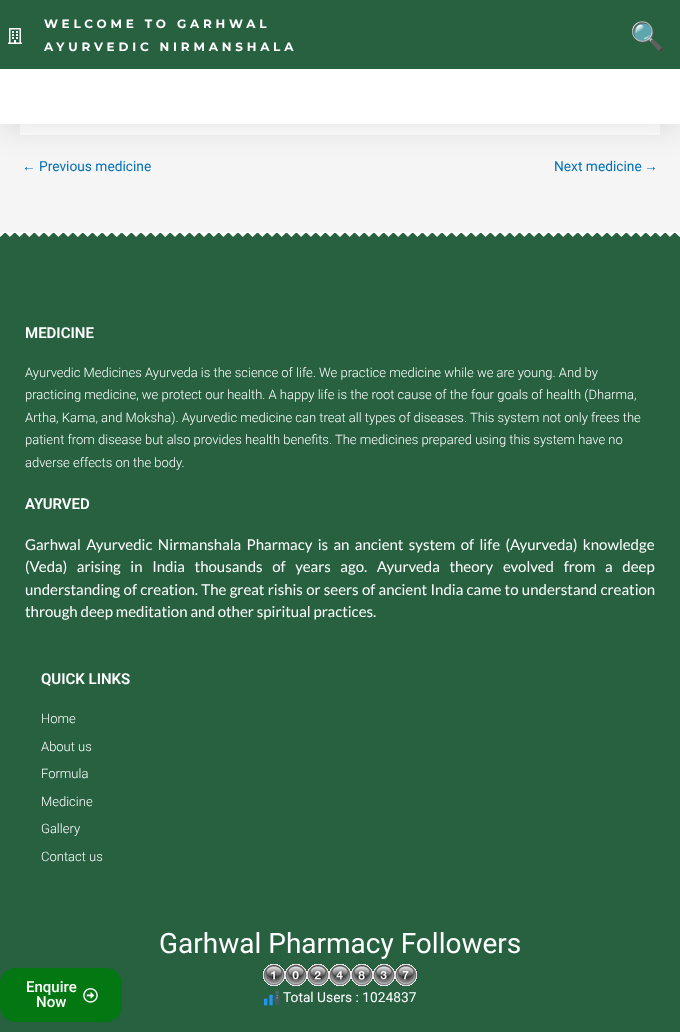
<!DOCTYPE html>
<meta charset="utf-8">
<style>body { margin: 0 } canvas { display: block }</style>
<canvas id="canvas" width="680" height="1032"></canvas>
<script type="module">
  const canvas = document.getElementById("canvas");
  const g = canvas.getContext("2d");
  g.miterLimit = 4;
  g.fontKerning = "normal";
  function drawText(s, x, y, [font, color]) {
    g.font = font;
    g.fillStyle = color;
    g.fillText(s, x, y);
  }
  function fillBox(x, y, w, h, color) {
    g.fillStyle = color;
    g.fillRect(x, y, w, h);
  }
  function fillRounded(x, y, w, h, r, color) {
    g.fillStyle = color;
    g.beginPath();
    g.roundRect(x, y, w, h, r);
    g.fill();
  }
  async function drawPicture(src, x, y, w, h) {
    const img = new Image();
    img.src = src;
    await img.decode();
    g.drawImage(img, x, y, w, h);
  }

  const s1 = ["bold 12px Montserrat", "#FFFFFF"];
  const s2 = ["28px Noto Color Emoji", "#333333"];
  const s3 = ["13.75px Liberation Sans", "#0170B9"];
  const s4 = ["13.75px Roboto", "#0170B9"];
  const s5 = ["600 15px Roboto", "#FFFFFF"];
  const s6 = ["300 13px Roboto", "#FFFFFF"];
  const s7 = ["15px Lato", "#FFFFFF"];
  const s8 = ["28px Roboto", "#FFFFFF"];
  const s9 = ["13.75px Roboto", "#FFFFFF"];
  const s10 = ["500 15px Roboto", "#FFFFFF"];

  fillBox(0, 0, 680, 1032, "#F5F5F5");
  fillBox(20, 124, 640, 11, "#FFFFFF");
  g.fillStyle = "rgba(0, 0, 0, 0.1)";
  g.filter = "blur(15px)";
  g.beginPath();
  g.rect(0, 5, 680, 124);
  g.fill();
  g.filter = "none";
  fillBox(0, 0, 680, 69, "#276140");
  await drawPicture("pic1.png", 8, 28, 14, 16);
  g.letterSpacing = "3.8px";
  drawText("WELCOME TO GARHWAL", 44, 28, s1);
  drawText("AYURVEDIC NIRMANSHALA", 44, 51, s1);
  g.letterSpacing = "0px";
  drawText("🔍", 630, 46, s2);
  fillBox(0, 69, 680, 55, "#FFFFFF");
  drawText("←", 22, 171, s3);
  drawText("Previous medicine", 39, 171, s4);
  drawText("Next medicine", 554, 171, s4);
  drawText("→", 644, 171, s3);
  fillBox(0, 233, 680, 799, "#276140");
  await drawPicture("pic2.png", 0, 232, 680, 5);
  drawText("MEDICINE", 25, 338, s5);
  drawText("Ayurvedic Medicines Ayurveda is the science of life. We practice medicine while we are young. And by", 25, 377, s6);
  drawText("practicing medicine, we protect our health. A happy life is the root cause of the four goals of health (Dharma,", 25, 399, s6);
  drawText("Artha, Kama, and Moksha). Ayurvedic medicine can treat all types of diseases. This system not only frees the", 25, 422, s6);
  drawText("patient from disease but also provides health benefits. The medicines prepared using this system have no", 25, 444, s6);
  drawText("adverse effects on the body.", 25, 467, s6);
  drawText("AYURVED", 25, 509, s5);
  g.wordSpacing = "2.5px";
  drawText("Garhwal Ayurvedic Nirmanshala Pharmacy is an ancient system of life (Ayurveda) knowledge", 25, 550, s7);
  g.wordSpacing = "6.75px";
  drawText("(Veda) arising in India thousands of years ago. Ayurveda theory evolved from a deep", 25, 572, s7);
  g.wordSpacing = "0.4px";
  drawText("understanding of creation. The great rishis or seers of ancient India came to understand creation", 25, 595, s7);
  g.wordSpacing = "0px";
  drawText("through deep meditation and other spiritual practices.", 25, 617, s7);
  drawText("QUICK LINKS", 41, 684, s5);
  drawText("Home", 41, 723, s6);
  drawText("About us", 41, 751, s6);
  drawText("Formula", 41, 778, s6);
  drawText("Medicine", 41, 806, s6);
  drawText("Gallery", 41, 833, s6);
  drawText("Contact us", 41, 861, s6);
  drawText("Garhwal Pharmacy Followers", 159, 953, s8);
  await drawPicture("pic3.png", 263, 964, 22, 22);
  await drawPicture("pic4.png", 285, 964, 22, 22);
  await drawPicture("pic5.png", 307, 964, 22, 22);
  await drawPicture("pic6.png", 329, 964, 22, 22);
  await drawPicture("pic7.png", 351, 964, 22, 22);
  await drawPicture("pic8.png", 373, 964, 22, 22);
  await drawPicture("pic9.png", 395, 964, 22, 22);
  await drawPicture("pic10.png", 264, 990, 16, 16);
  drawText("Total Users : 1024837", 283, 1002, s9);
  fillRounded(0, 968, 122, 54, 16, "#027712");
  drawText("Enquire", 26, 992, s10);
  drawText("Now", 36, 1007, s10);
  await drawPicture("pic11.png", 83, 988, 15, 15);
</script>
